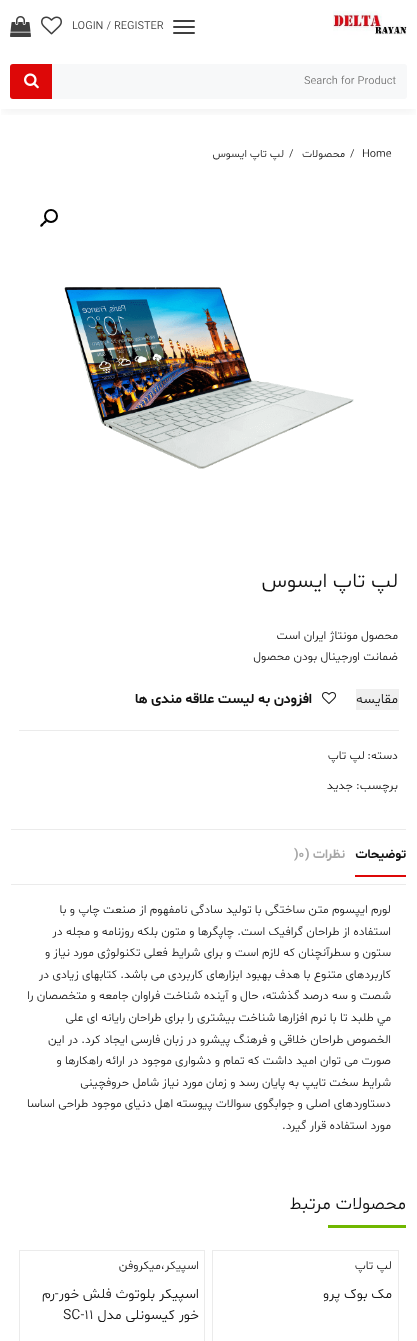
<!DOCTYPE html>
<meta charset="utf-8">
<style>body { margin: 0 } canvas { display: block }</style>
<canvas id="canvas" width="417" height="1341"></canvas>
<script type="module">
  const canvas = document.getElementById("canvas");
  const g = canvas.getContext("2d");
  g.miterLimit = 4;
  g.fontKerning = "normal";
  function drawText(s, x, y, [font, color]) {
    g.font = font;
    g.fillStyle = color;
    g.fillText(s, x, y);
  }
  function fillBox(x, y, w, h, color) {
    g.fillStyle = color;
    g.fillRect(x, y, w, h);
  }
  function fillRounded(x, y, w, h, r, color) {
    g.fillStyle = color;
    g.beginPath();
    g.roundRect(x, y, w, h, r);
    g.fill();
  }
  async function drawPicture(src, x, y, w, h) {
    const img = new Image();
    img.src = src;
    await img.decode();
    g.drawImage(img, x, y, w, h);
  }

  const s1 = ["300 11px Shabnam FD", "#3F3F3F"];
  const s2 = ["300 11px Shabnam FD", "#757575"];
  const s3 = ["300 11px Shabnam FD", "#101010"];
  const s4 = ["300 21px Shabnam FD", "#101010"];
  const s5 = ["300 12px Shabnam FD", "#101010"];
  const s6 = ["300 14px Shabnam FD", "#101010"];
  const s7 = ["bold 14px Shabnam FD", "#101010"];
  const s8 = ["bold 13px Shabnam FD", "#101010"];
  const s9 = ["bold 13px Shabnam FD", "#A7A7A7"];
  const s10 = ["300 18px Shabnam FD", "#101010"];

  fillBox(0, 0, 417, 1341, "#FFFFFF");
  g.save();
  g.beginPath();
  g.rect(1, 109, 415, 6);
  g.clip();
  g.fillStyle = "rgba(0, 0, 0, 0.06)";
  g.filter = "blur(6px)";
  g.beginPath();
  g.rect(1, 5, 415, 107);
  g.fill();
  g.filter = "none";
  g.restore();
  await drawPicture("pic1.png", 333, 10, 74, 25);
  fillRounded(173, 20, 22, 2, 1, "#3F3F3F");
  fillRounded(173, 26, 22, 2, 1, "#3F3F3F");
  fillRounded(173, 32, 22, 2, 1, "#3F3F3F");
  drawText("LOGIN / REGISTER", 72, 29, s1);
  await drawPicture("pic2.png", 41, 16, 21, 19);
  await drawPicture("pic3.png", 10, 16, 21, 21);
  g.fillStyle = "#F7F8F9";
  g.beginPath();
  g.roundRect(52, 64, 355, 35, [0, 3, 3, 0]);
  g.fill();
  drawText("Search for Product", 304, 84, s2);
  g.fillStyle = "#DD0808";
  g.beginPath();
  g.roundRect(10, 64, 42, 35, [3, 0, 0, 3]);
  g.fill();
  await drawPicture("pic4.png", 24, 73, 15, 16);
  drawText("Home", 362, 157, s3);
  drawText("/", 350, 157, s3);
  g.direction = "rtl";
  drawText("محصولات", 345, 157, s3);
  g.direction = "ltr";
  drawText("/", 289, 157, s3);
  g.direction = "rtl";
  drawText("لپ تاپ ایسوس", 284, 157, s3);
  g.beginPath();
  g.arc(51, 216, 6, 0, Math.PI * 2);
  g.strokeStyle = "#000000";
  g.lineWidth = 2;
  g.stroke();
  g.fillStyle = "#000000";
  g.beginPath();
  g.moveTo(46.5, 220.5);
  g.bezierCurveTo(47.5, 222, 45, 223.5, 44, 224);
  g.bezierCurveTo(43.5, 225, 42, 227.5, 40.5, 226.5);
  g.bezierCurveTo(39.5, 225, 42, 223.5, 43, 222.5);
  g.bezierCurveTo(43.5, 222, 45, 219.5, 46.5, 220.5);
  g.closePath();
  g.fill();
  await drawPicture("pic5.png", 64, 287, 290, 182);
  drawText("لپ تاپ ایسوس", 398, 587, s4);
  drawText("محصول مونتاژ ایران است", 398, 639, s5);
  drawText("ضمانت اورجینال بودن محصول", 398, 660, s5);
  fillBox(356, 689, 43, 21, "#EFEFEF");
  drawText("مقایسه", 398, 703, s6);
  await drawPicture("pic6.png", 322, 692, 14, 12);
  drawText("افزودن به لیست علاقه مندی ها", 312, 703, s7);
  fillBox(19, 730, 380, 1, "#EBEBEB");
  drawText("دسته:", 398, 759, s5);
  drawText("لپ تاپ", 365, 759, s5);
  drawText("برچسب:", 398, 789, s5);
  drawText("جدید", 353, 789, s5);
  fillBox(11, 829, 395, 1, "#EBEBEB");
  fillBox(11, 884, 395, 1, "#EBEBEB");
  drawText("توضیحات", 406, 858, s8);
  fillBox(355, 875, 51, 2, "#DD0808");
  drawText("نظرات (", 345, 858, s9);
  g.direction = "ltr";
  drawText(")0", 294, 858, s9);
  g.direction = "rtl";
  drawText("لورم ايپسوم متن ساختگی با توليد سادگی نامفهوم از صنعت چاپ و با", 391, 913, s5);
  drawText("استفاده از طراحان گرافيک است. چاپگرها و متون بلکه روزنامه و مجله در", 391, 935, s5);
  drawText("ستون و سطرآنچنان که لازم است و برای شرايط فعلی تکنولوژی مورد نياز و", 391, 956, s5);
  drawText("کاربردهای متنوع با هدف بهبود ابزارهای کاربردی می باشد. کتابهای زيادی در", 391, 978, s5);
  drawText("شصت و سه درصد گذشته، حال و آينده شناخت فراوان جامعه و متخصصان را", 391, 999, s5);
  drawText("مي طلبد تا با نرم افزارها شناخت بيشتری را برای طراحان رايانه ای علی", 391, 1021, s5);
  drawText("الخصوص طراحان خلاقی و فرهنگ پيشرو در زبان فارسی ايجاد کرد. در اين", 391, 1043, s5);
  drawText("صورت می توان اميد داشت که تمام و دشواری موجود در ارائه راهکارها و", 391, 1064, s5);
  drawText("شرايط سخت تايپ به پايان رسد و زمان مورد نياز شامل حروفچينی", 391, 1086, s5);
  drawText("دستاوردهای اصلی و جوابگوی سوالات پيوسته اهل دنيای موجود طراحی اساسا", 391, 1107, s5);
  drawText("مورد استفاده قرار گيرد.", 391, 1129, s5);
  drawText("محصولات مرتبط", 406, 1209, s10);
  fillBox(328, 1225, 78, 3, "#70B700");
  g.strokeStyle = "#EBEBEB";
  g.lineWidth = 1;
  g.strokeRect(212.5, 1250.5, 186, 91);
  drawText("لپ تاپ", 392, 1269, s5);
  drawText("مک بوک پرو", 392, 1298, s6);
  g.strokeRect(19.5, 1250.5, 185, 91);
  drawText("اسپیکر،میکروفن", 199, 1269, s5);
  drawText("اسپیکر بلوتوث فلش خور-رم", 199, 1298, s6);
  drawText("خور کیسونلی مدل", 199, 1319, s6);
  g.direction = "ltr";
  drawText("SC-11", 63, 1319, s6);
</script>
